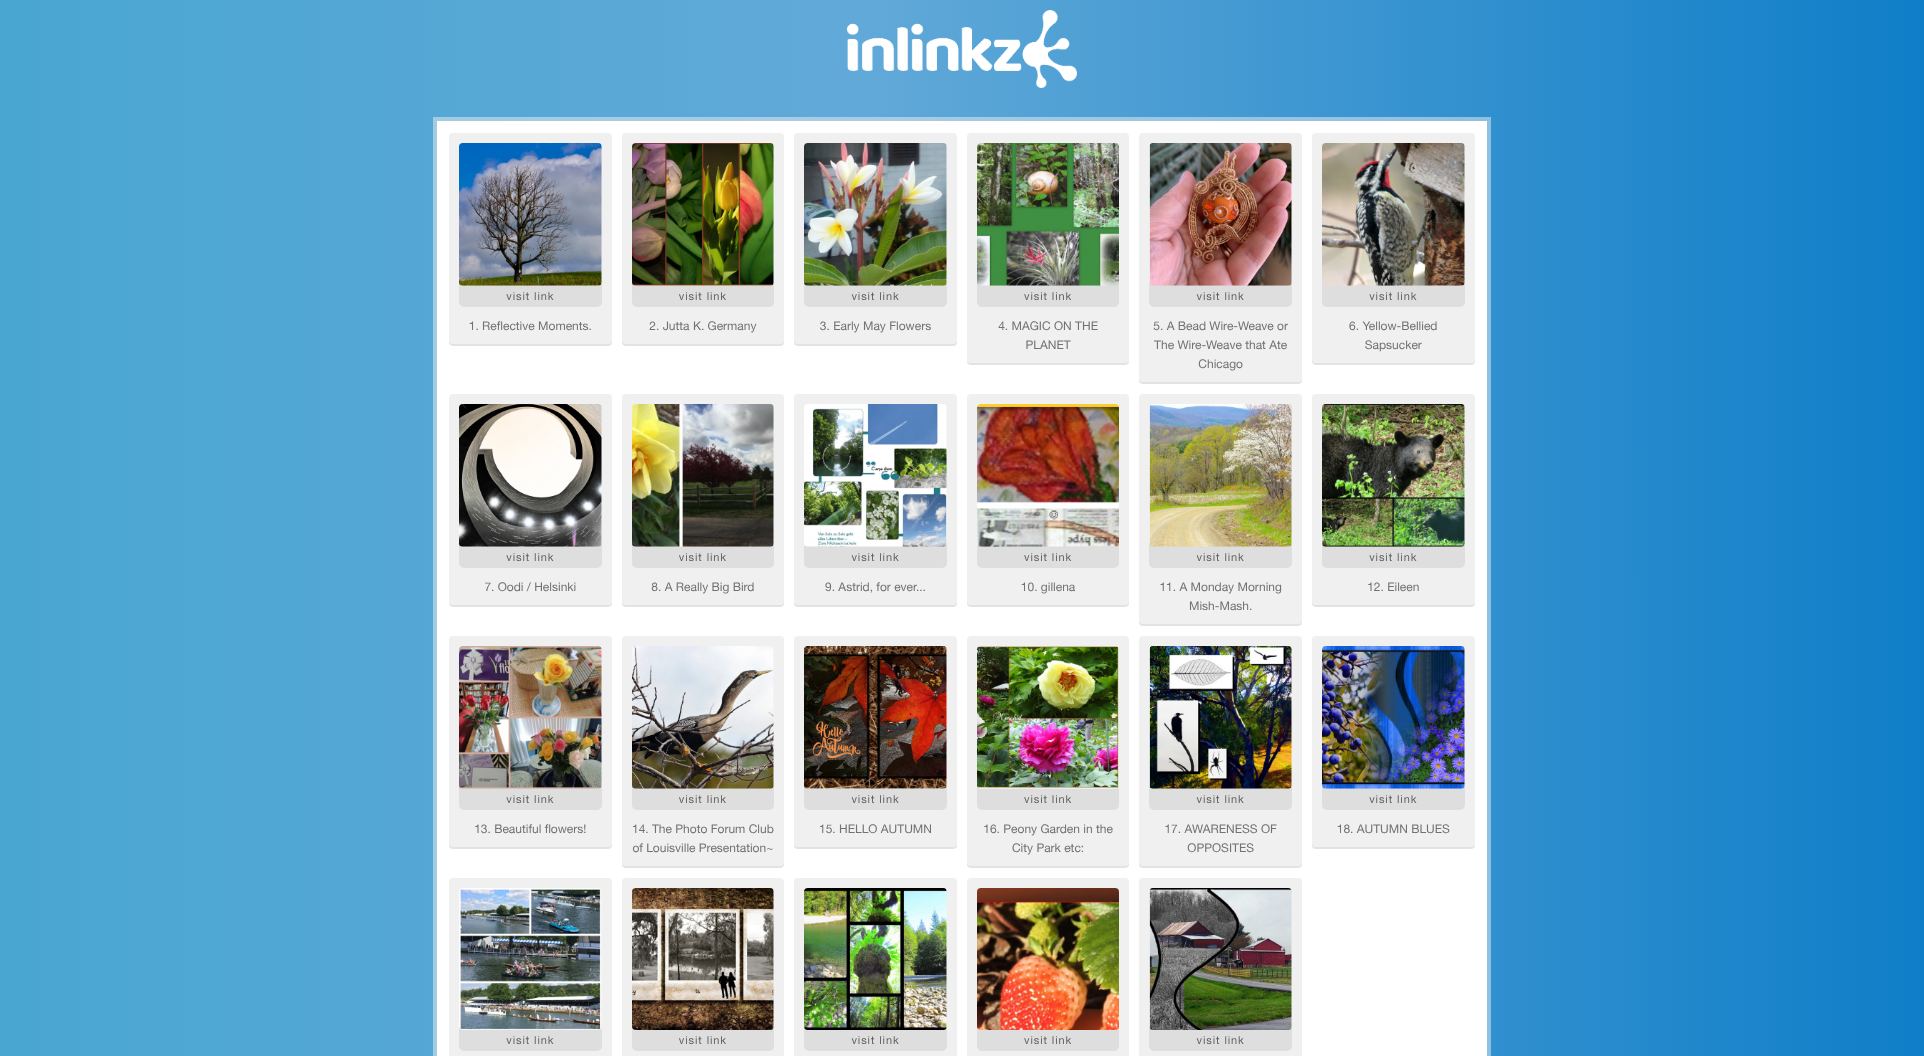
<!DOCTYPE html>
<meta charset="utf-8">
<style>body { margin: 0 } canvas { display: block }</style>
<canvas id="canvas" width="1924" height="1056"></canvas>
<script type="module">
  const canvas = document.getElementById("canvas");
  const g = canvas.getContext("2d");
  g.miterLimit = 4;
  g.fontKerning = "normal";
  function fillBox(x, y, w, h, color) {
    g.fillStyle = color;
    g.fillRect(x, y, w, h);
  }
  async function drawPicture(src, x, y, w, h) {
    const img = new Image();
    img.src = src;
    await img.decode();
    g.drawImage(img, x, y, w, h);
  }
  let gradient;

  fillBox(0, 0, 1924, 1056, "#FFFFFF");
  gradient = g.createLinearGradient(0, 668, 1924, 667);
  gradient.addColorStop(0, "#49A6D1");
  gradient.addColorStop(0.45, "#61A9D8");
  gradient.addColorStop(1, "#0F7EC8");
  g.fillStyle = gradient;
  g.fillRect(0, 0, 1924, 1056);
  await drawPicture("pic1.png", 847, 10, 230, 78);
  g.strokeStyle = "rgba(240, 240, 240, 0.5)";
  g.lineWidth = 4;
  g.strokeRect(435, 119, 1054, 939);
  await drawPicture("pic2.png", 437, 121, 1050, 935);
</script>
